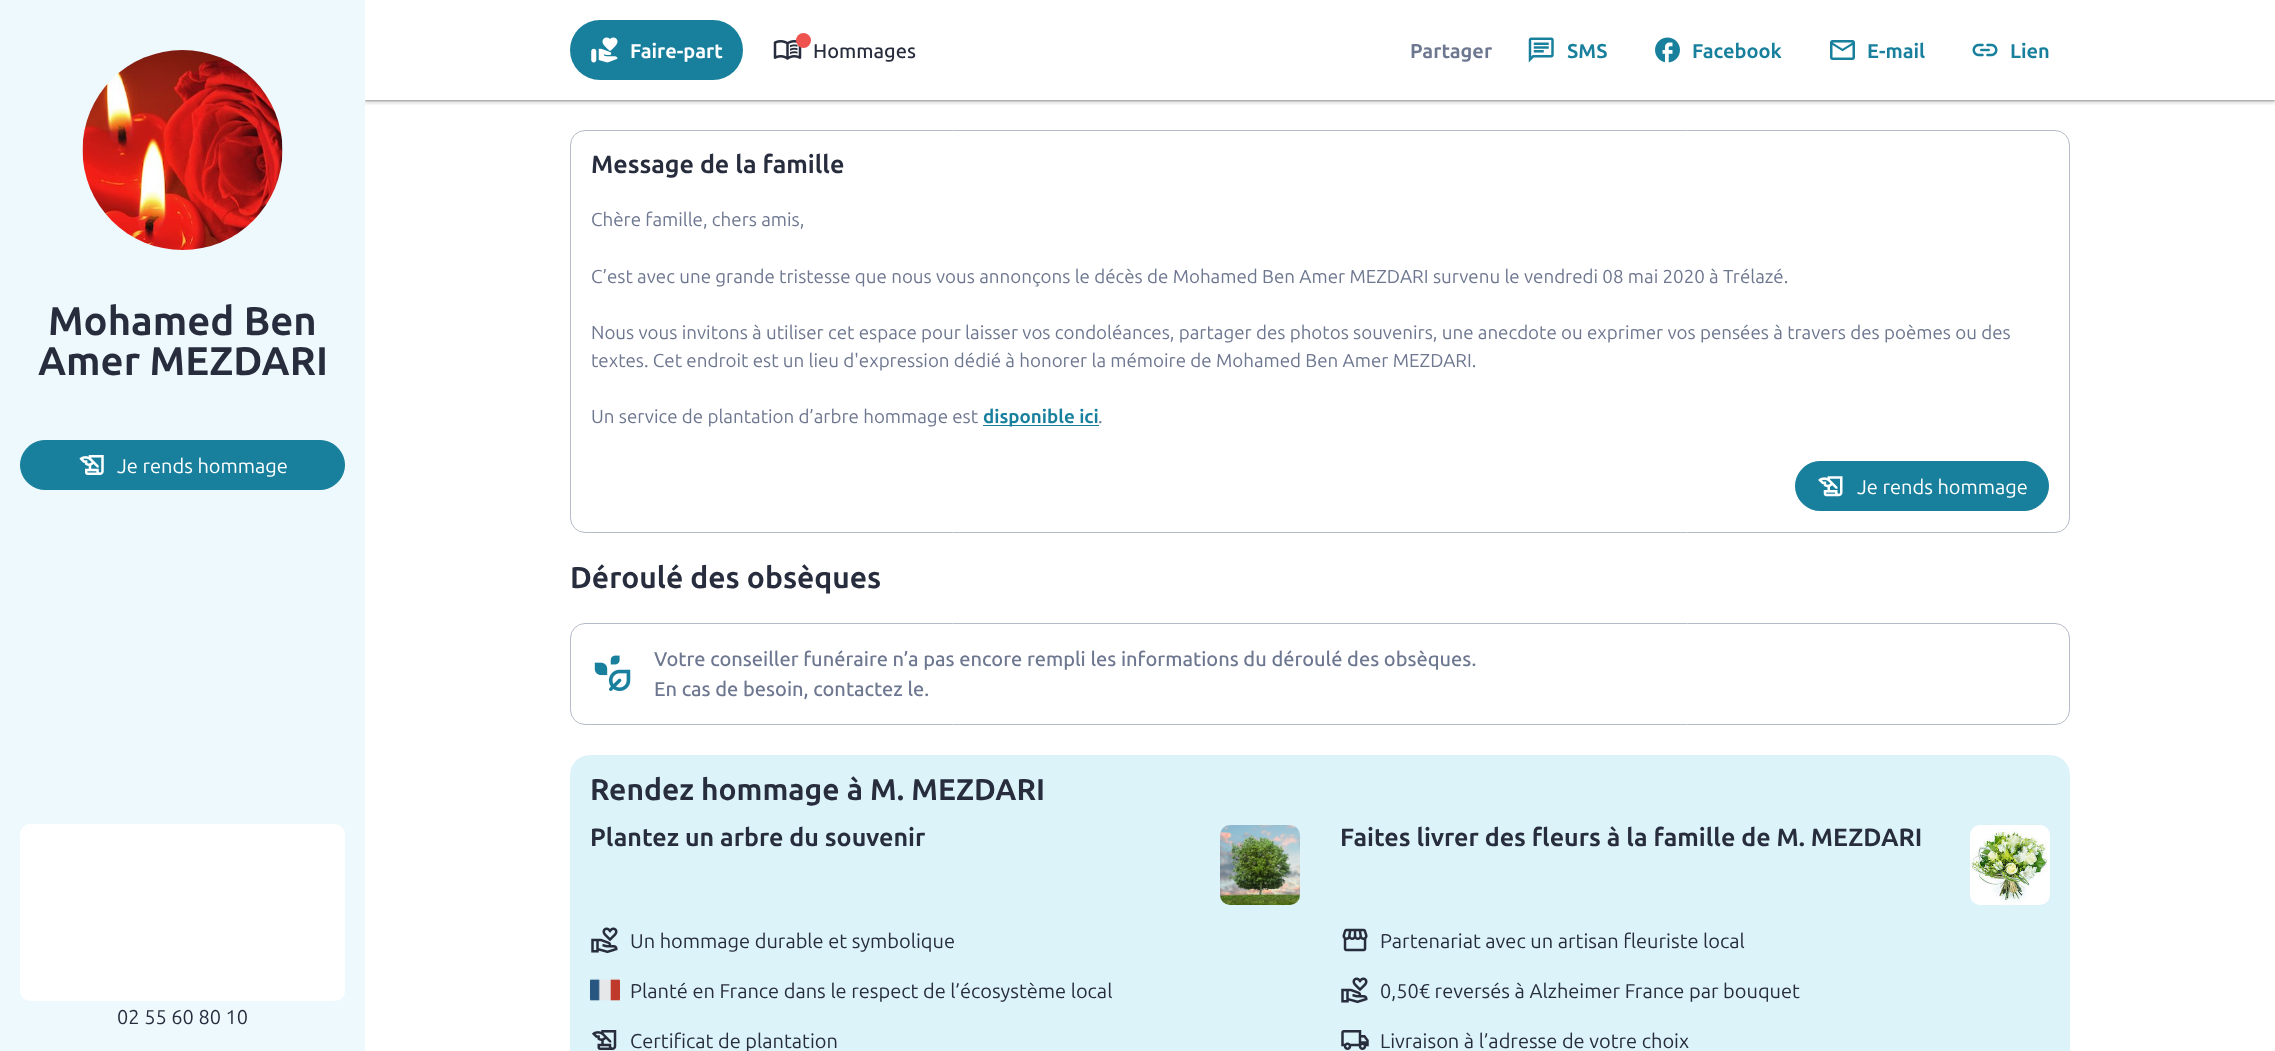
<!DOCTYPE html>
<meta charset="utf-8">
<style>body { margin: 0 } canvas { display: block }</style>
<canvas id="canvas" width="2275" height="1051"></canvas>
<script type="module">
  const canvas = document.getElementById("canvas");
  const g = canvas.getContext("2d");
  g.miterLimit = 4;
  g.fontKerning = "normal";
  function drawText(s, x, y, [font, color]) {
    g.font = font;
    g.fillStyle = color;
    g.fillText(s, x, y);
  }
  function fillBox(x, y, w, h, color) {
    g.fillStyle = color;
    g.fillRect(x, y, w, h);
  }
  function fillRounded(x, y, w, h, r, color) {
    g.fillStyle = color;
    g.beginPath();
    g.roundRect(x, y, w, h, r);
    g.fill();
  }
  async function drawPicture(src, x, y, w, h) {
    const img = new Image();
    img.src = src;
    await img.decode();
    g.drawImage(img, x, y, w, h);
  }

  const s1 = ["bold 40px Ubuntu", "#282D3E"];
  const s2 = ["20px Ubuntu", "#FFFFFF"];
  const s3 = ["20px Ubuntu", "#282D3E"];
  const s4 = ["bold 20px Ubuntu", "#FFFFFF"];
  const s5 = ["500 20px Ubuntu", "#282D3E"];
  const s6 = ["bold 20px Ubuntu", "#6E7790"];
  const s7 = ["bold 20px Ubuntu", "#18809D"];
  const s8 = ["bold 25px Ubuntu", "#282D3E"];
  const s9 = ["18.75px Ubuntu", "#6E7790"];
  const s10 = ["bold 18.75px Ubuntu", "#18809D"];
  const s11 = ["bold 30px Ubuntu", "#282D3E"];
  const s12 = ["500 20px Ubuntu", "#6E7790"];

  fillBox(0, 0, 2275, 1051, "#FFFFFF");
  g.save();
  g.beginPath();
  g.rect(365, 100, 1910, 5);
  g.clip();
  g.fillStyle = "rgba(0, 0, 0, 0.15)";
  g.filter = "blur(2px)";
  g.beginPath();
  g.rect(364, 0, 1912, 103);
  g.fill();
  g.filter = "none";
  g.restore();
  g.save();
  g.beginPath();
  g.rect(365, 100, 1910, 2);
  g.clip();
  g.fillStyle = "rgba(0, 0, 0, 0.3)";
  g.filter = "blur(1px)";
  g.beginPath();
  g.rect(365, 1, 1910, 100);
  g.fill();
  g.filter = "none";
  g.restore();
  fillBox(0, 0, 365, 1051, "#EDF9FC");
  await drawPicture("pic1.png", 82, 50, 201, 200);
  drawText("Mohamed Ben", 48, 335, s1);
  drawText("Amer MEZDARI", 38, 375, s1);
  g.fillStyle = "#18809D";
  g.beginPath();
  g.roundRect(20.5, 440.5, 324, 49, 24.5);
  g.fill();
  g.strokeStyle = "#18809D";
  g.stroke();
  await drawPicture("pic2.png", 79, 455, 25, 20);
  drawText("Je rends hommage", 117, 473, s2);
  fillRounded(20, 824, 325, 177, 10, "#FFFFFF");
  drawText("02 55 60 80 10", 117, 1024, s3);
  fillRounded(570, 20, 173, 60, 30, "#18809D");
  await drawPicture("pic3.png", 591, 37, 27, 26);
  drawText("Faire-part", 630, 58, s4);
  await drawPicture("pic4.png", 773, 40, 29, 20);
  g.fillStyle = "#EF5350";
  g.beginPath();
  g.arc(803.5, 40.5, 7.5, 0, Math.PI * 2);
  g.fill();
  drawText("Hommages", 813, 58, s5);
  drawText("Partager", 1410, 58, s6);
  await drawPicture("pic5.png", 1528, 37, 26, 26);
  drawText("SMS", 1567, 58, s7);
  await drawPicture("pic6.png", 1655, 37, 25, 26);
  drawText("Facebook", 1692, 58, s7);
  await drawPicture("pic7.png", 1830, 40, 25, 20);
  drawText("E-mail", 1867, 58, s7);
  await drawPicture("pic8.png", 1972, 43, 26, 14);
  drawText("Lien", 2010, 58, s7);
  g.beginPath();
  g.roundRect(570.5, 130.5, 1499, 402, 14.5);
  g.strokeStyle = "#B6BBCA";
  g.stroke();
  drawText("Message de la famille", 591, 173, s8);
  drawText("Chère famille, chers amis,", 591, 226, s9);
  drawText("C’est avec une grande tristesse que nous vous annonçons le décès de Mohamed Ben Amer MEZDARI survenu le vendredi 08 mai 2020 à Trélazé.", 591, 283, s9);
  drawText("Nous vous invitons à utiliser cet espace pour laisser vos condoléances, partager des photos souvenirs, une anecdote ou exprimer vos pensées à travers des poèmes ou des", 591, 339, s9);
  drawText("textes. Cet endroit est un lieu d'expression dédié à honorer la mémoire de Mohamed Ben Amer MEZDARI.", 591, 367, s9);
  drawText("Un service de plantation d’arbre hommage est", 591, 423, s9);
  fillBox(983, 425, 116, 1, "#18809D");
  drawText("disponible ici", 983, 423, s10);
  drawText(".", 1098, 423, s9);
  g.fillStyle = "#18809D";
  g.beginPath();
  g.roundRect(1795.5, 461.5, 253, 49, 24.5);
  g.fill();
  g.strokeStyle = "#18809D";
  g.stroke();
  await drawPicture("pic9.png", 1818, 476, 25, 21);
  drawText("Je rends hommage", 1857, 494, s2);
  drawText("Déroulé des obsèques", 570, 588, s11);
  g.beginPath();
  g.roundRect(570.5, 623.5, 1499, 101, 14.5);
  g.strokeStyle = "#B6BBCA";
  g.stroke();
  await drawPicture("pic10.png", 594, 655, 37, 36);
  drawText("Votre conseiller funéraire n’a pas encore rempli les informations du déroulé des obsèques.", 654, 666, s12);
  drawText("En cas de besoin, contactez le.", 654, 696, s12);
  g.fillStyle = "#DCF3F9";
  g.beginPath();
  g.roundRect(570, 755, 1500, 296, [20, 20, 0, 0]);
  g.fill();
  drawText("Rendez hommage à M. MEZDARI", 590, 800, s11);
  drawText("Plantez un arbre du souvenir", 590, 846, s8);
  await drawPicture("pic11.png", 1220, 825, 80, 80);
  await drawPicture("pic12.png", 591, 927, 27, 27);
  drawText("Un hommage durable et symbolique", 630, 948, s3);
  await drawPicture("pic13.png", 590, 978, 30, 23);
  drawText("Planté en France dans le respect de l’écosystème local", 630, 998, s3);
  await drawPicture("pic14.png", 592, 1030, 25, 20);
  drawText("Certificat de plantation", 630, 1048, s3);
  drawText("Faites livrer des fleurs à la famille de M. MEZDARI", 1340, 846, s8);
  await drawPicture("pic15.png", 1970, 825, 80, 80);
  await drawPicture("pic16.png", 1342, 928, 26, 24);
  drawText("Partenariat avec un artisan fleuriste local", 1380, 948, s3);
  await drawPicture("pic12.png", 1341, 977, 27, 27);
  drawText("0,50€ reversés à Alzheimer France par bouquet", 1380, 998, s3);
  await drawPicture("pic17.png", 1341, 1030, 28, 20);
  drawText("Livraison à l’adresse de votre choix", 1380, 1048, s3);
</script>
